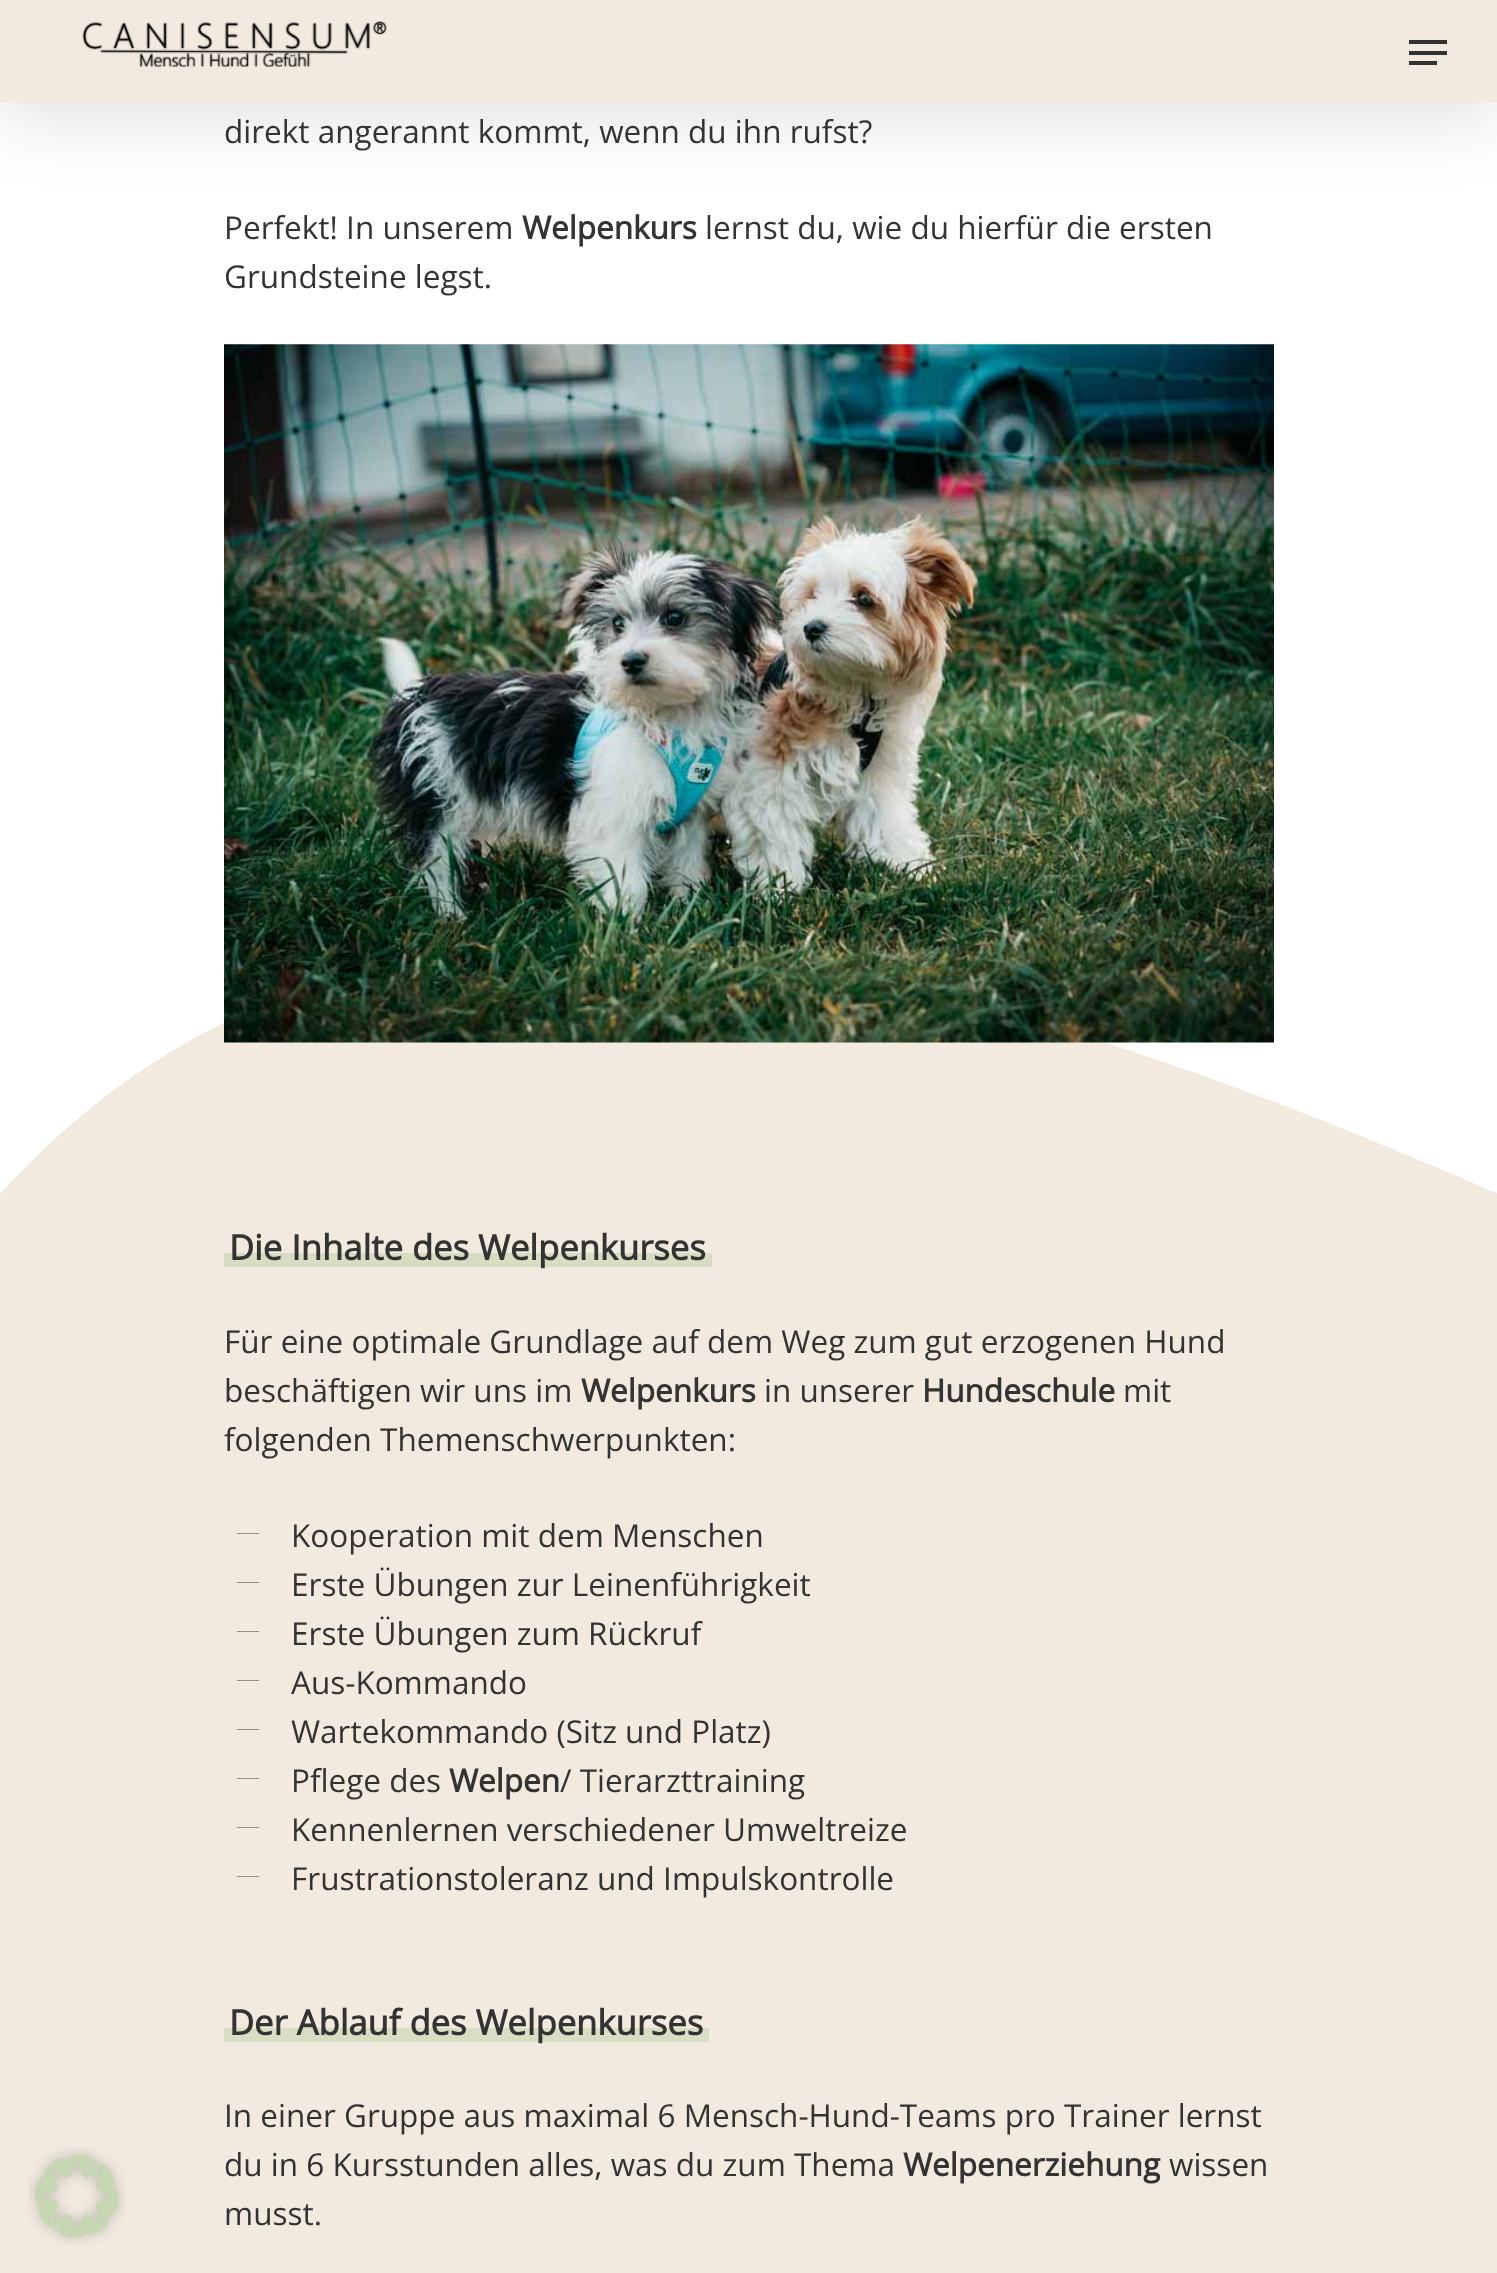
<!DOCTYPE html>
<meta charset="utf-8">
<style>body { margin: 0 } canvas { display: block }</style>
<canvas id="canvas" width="1497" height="2273"></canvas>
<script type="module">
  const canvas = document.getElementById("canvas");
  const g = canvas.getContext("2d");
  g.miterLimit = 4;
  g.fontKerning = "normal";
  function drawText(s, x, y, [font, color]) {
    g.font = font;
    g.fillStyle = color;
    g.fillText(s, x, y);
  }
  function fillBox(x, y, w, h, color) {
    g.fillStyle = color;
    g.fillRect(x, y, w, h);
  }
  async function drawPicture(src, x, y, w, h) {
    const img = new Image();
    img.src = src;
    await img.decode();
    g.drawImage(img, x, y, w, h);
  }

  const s1 = ["31.5px Open Sans", "#333333"];
  const s2 = ["bold 31.5px Open Sans", "#333333"];
  const s3 = ["bold 34.6px Open Sans", "#333333"];

  fillBox(0, 0, 1497, 2273, "#FFFFFF");
  fillBox(0, 1194, 1497, 1079, "#F2EADF");
  await drawPicture("pic1.png", 28, 2147, 98, 98);
  g.fillStyle = "rgba(0, 0, 0, 0.15)";
  g.filter = "blur(39.5px)";
  g.beginPath();
  g.rect(0, 5, 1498, 104);
  g.fill();
  g.filter = "none";
  fillBox(0, 0, 1497, 103, "#F2EADF");
  await drawPicture("pic2.png", 82, 21, 305, 47);
  fillBox(1409, 40, 38, 4, "#333333");
  fillBox(1409, 61, 28, 4, "#333333");
  fillBox(1409, 51, 38, 4, "#333333");
  drawText("direkt angerannt kommt, wenn du ihn rufst?", 224, 143, s1);
  drawText("Perfekt! In unserem", 224, 239, s1);
  drawText("Welpenkurs", 522, 239, s2);
  drawText("lernst du, wie du hierfür die ersten", 705, 239, s1);
  drawText("Grundsteine legst.", 224, 288, s1);
  g.fillStyle = "#F2EADF";
  g.beginPath();
  g.moveTo(0, 1194);
  g.bezierCurveTo(300, 864, 749, 864, 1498, 1194);
  g.closePath();
  g.fill();
  await drawPicture("pic3.png", 224, 344, 1050, 699);
  fillBox(224, 1253, 488, 14, "#D7DDC3");
  drawText("Die Inhalte des Welpenkurses", 229, 1260, s3);
  drawText("Für eine optimale Grundlage auf dem Weg zum gut erzogenen Hund", 224, 1353, s1);
  drawText("beschäftigen wir uns im", 224, 1402, s1);
  drawText("Welpenkurs", 581, 1402, s2);
  drawText("in unserer", 764, 1402, s1);
  drawText("Hundeschule", 922, 1402, s2);
  drawText("mit", 1123, 1402, s1);
  drawText("folgenden Themenschwerpunkten:", 224, 1451, s1);
  g.beginPath();
  g.moveTo(237, 1533.5);
  g.lineTo(259, 1533.5);
  g.lineTo(259, 1534);
  g.lineTo(237, 1534);
  g.closePath();
  g.fill();
  drawText("Kooperation mit dem Menschen", 291, 1547, s1);
  g.beginPath();
  g.moveTo(237, 1582.5);
  g.lineTo(259, 1582.5);
  g.lineTo(259, 1583);
  g.lineTo(237, 1583);
  g.closePath();
  g.fill();
  drawText("Erste Übungen zur Leinenführigkeit", 291, 1596, s1);
  g.beginPath();
  g.moveTo(237, 1631.5);
  g.lineTo(259, 1631.5);
  g.lineTo(259, 1632);
  g.lineTo(237, 1632);
  g.closePath();
  g.fill();
  drawText("Erste Übungen zum Rückruf", 291, 1645, s1);
  g.beginPath();
  g.moveTo(237, 1680.5);
  g.lineTo(259, 1680.5);
  g.lineTo(259, 1681);
  g.lineTo(237, 1681);
  g.closePath();
  g.fill();
  drawText("Aus-Kommando", 291, 1694, s1);
  g.beginPath();
  g.moveTo(237, 1729.5);
  g.lineTo(259, 1729.5);
  g.lineTo(259, 1730);
  g.lineTo(237, 1730);
  g.closePath();
  g.fill();
  drawText("Wartekommando (Sitz und Platz)", 291, 1743, s1);
  g.beginPath();
  g.moveTo(237, 1778.5);
  g.lineTo(259, 1778.5);
  g.lineTo(259, 1779);
  g.lineTo(237, 1779);
  g.closePath();
  g.fill();
  drawText("Pflege des", 291, 1792, s1);
  drawText("Welpen", 449, 1792, s2);
  drawText("/ Tierarzttraining", 560, 1792, s1);
  g.beginPath();
  g.moveTo(237, 1827.5);
  g.lineTo(259, 1827.5);
  g.lineTo(259, 1828);
  g.lineTo(237, 1828);
  g.closePath();
  g.fill();
  drawText("Kennenlernen verschiedener Umweltreize", 291, 1841, s1);
  g.beginPath();
  g.moveTo(237, 1876.5);
  g.lineTo(259, 1876.5);
  g.lineTo(259, 1877);
  g.lineTo(237, 1877);
  g.closePath();
  g.fill();
  drawText("Frustrationstoleranz und Impulskontrolle", 291, 1890, s1);
  fillBox(224, 2028, 485, 14, "#D8DEC4");
  drawText("Der Ablauf des Welpenkurses", 229, 2035, s3);
  drawText("In einer Gruppe aus maximal 6 Mensch-Hund-Teams pro Trainer lernst", 224, 2127, s1);
  drawText("du in 6 Kursstunden alles, was du zum Thema", 224, 2176, s1);
  drawText("Welpenerziehung", 903, 2176, s2);
  drawText("wissen", 1169, 2176, s1);
  drawText("musst.", 224, 2225, s1);
</script>
